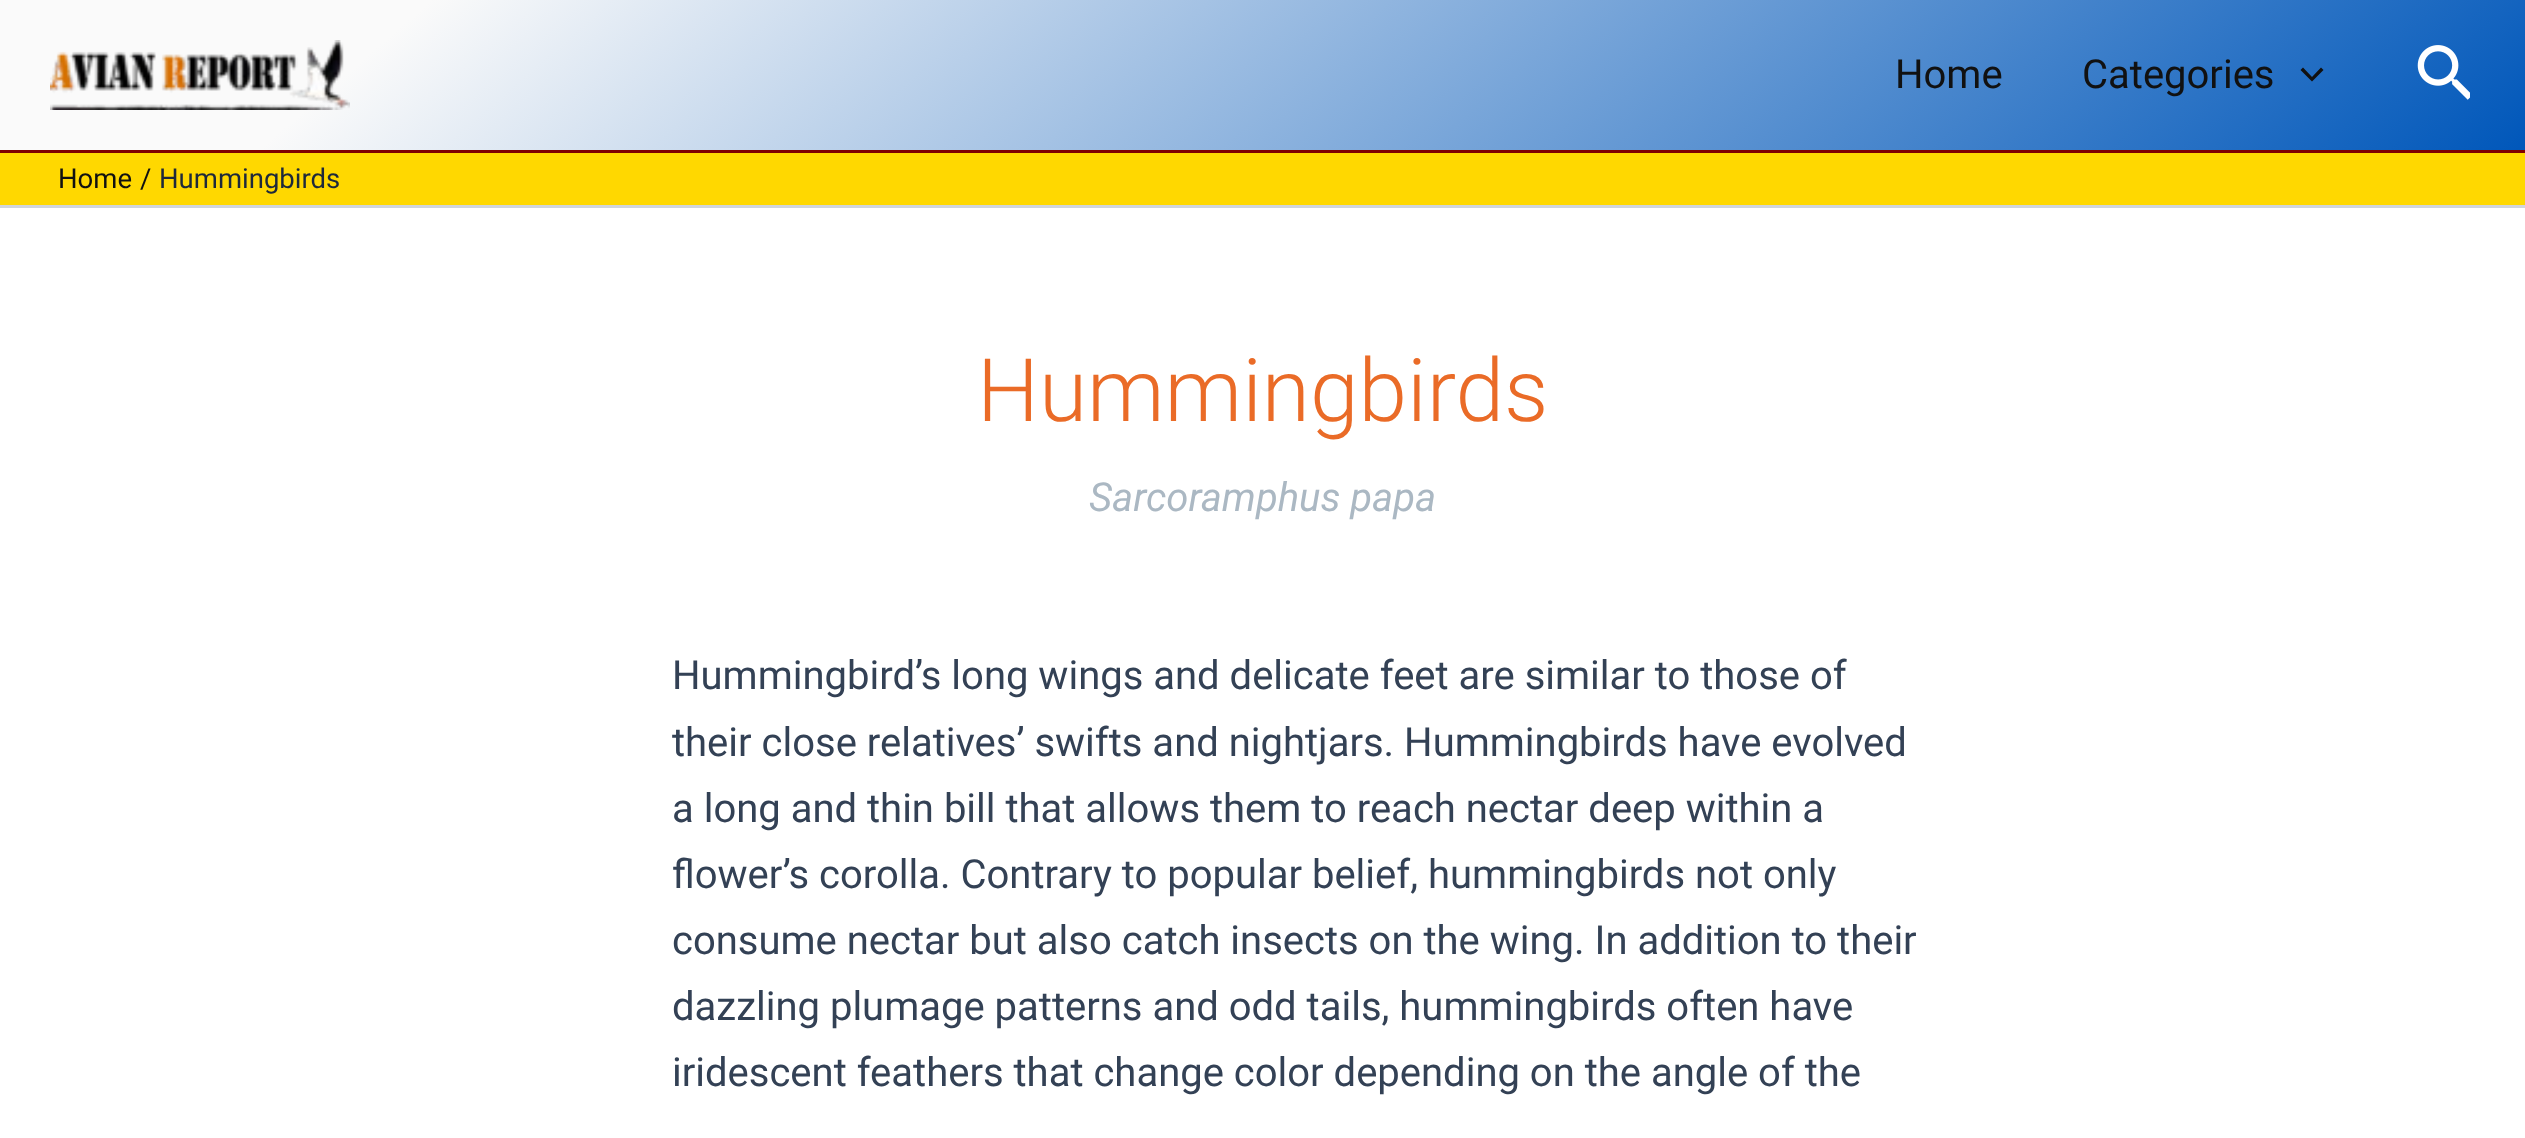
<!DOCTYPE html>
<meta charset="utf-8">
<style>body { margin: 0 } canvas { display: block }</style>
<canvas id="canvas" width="2525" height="1138"></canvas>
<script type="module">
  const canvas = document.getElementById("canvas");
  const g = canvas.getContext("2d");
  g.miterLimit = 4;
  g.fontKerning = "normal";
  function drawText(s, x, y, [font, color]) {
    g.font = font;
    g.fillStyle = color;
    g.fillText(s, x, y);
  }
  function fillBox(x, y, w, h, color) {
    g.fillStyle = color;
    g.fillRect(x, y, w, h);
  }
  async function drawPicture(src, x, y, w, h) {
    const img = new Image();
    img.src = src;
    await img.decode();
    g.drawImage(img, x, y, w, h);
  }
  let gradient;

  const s1 = ["40px Roboto", "#111111"];
  const s2 = ["27.5px Roboto", "#111111"];
  const s3 = ["27.5px Roboto", "#1E293B"];
  const s4 = ["300 87.5px Roboto", "#EA6B27"];
  const s5 = ["italic 40px Roboto", "#ABB8C3"];
  const s6 = ["40px Roboto", "#334155"];

  fillBox(0, 0, 2525, 1138, "#FFFFFF");
  gradient = g.createLinearGradient(682, -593, 1843, 743);
  gradient.addColorStop(0.16, "#FAFAFA");
  gradient.addColorStop(1, "#0057BA");
  g.fillStyle = gradient;
  g.fillRect(0, 0, 2525, 150);
  fillBox(0, 150, 2525, 3, "#800000");
  await drawPicture("pic1.png", 50, 40, 300, 70);
  drawText("Home", 1895, 88, s1);
  drawText("Categories", 2082, 88, s1);
  g.beginPath();
  g.moveTo(2300.5, 70);
  g.lineTo(2312, 81.5);
  g.lineTo(2323.5, 70);
  g.lineTo(2321, 67.5);
  g.lineTo(2312, 77);
  g.lineTo(2303, 67.5);
  g.closePath();
  g.fill();
  await drawPicture("pic2.png", 2417, 45, 53, 55);
  fillBox(0, 153, 2525, 52, "#FFD800");
  fillBox(0, 205, 2525, 3, "#D1D5DB");
  drawText("Home", 58, 188, s2);
  drawText("/", 140, 188, s2);
  drawText("Hummingbirds", 159, 188, s3);
  drawText("Hummingbirds", 977, 421, s4);
  drawText("Sarcoramphus papa", 1089, 511, s5);
  drawText("Hummingbird’s long wings and delicate feet are similar to those of", 672, 689, s6);
  drawText("their close relatives’ swifts and nightjars. Hummingbirds have evolved", 672, 756, s6);
  drawText("a long and thin bill that allows them to reach nectar deep within a", 672, 822, s6);
  drawText("flower’s corolla. Contrary to popular belief, hummingbirds not only", 672, 888, s6);
  drawText("consume nectar but also catch insects on the wing. In addition to their", 672, 954, s6);
  drawText("dazzling plumage patterns and odd tails, hummingbirds often have", 672, 1020, s6);
  drawText("iridescent feathers that change color depending on the angle of the", 672, 1086, s6);
</script>
